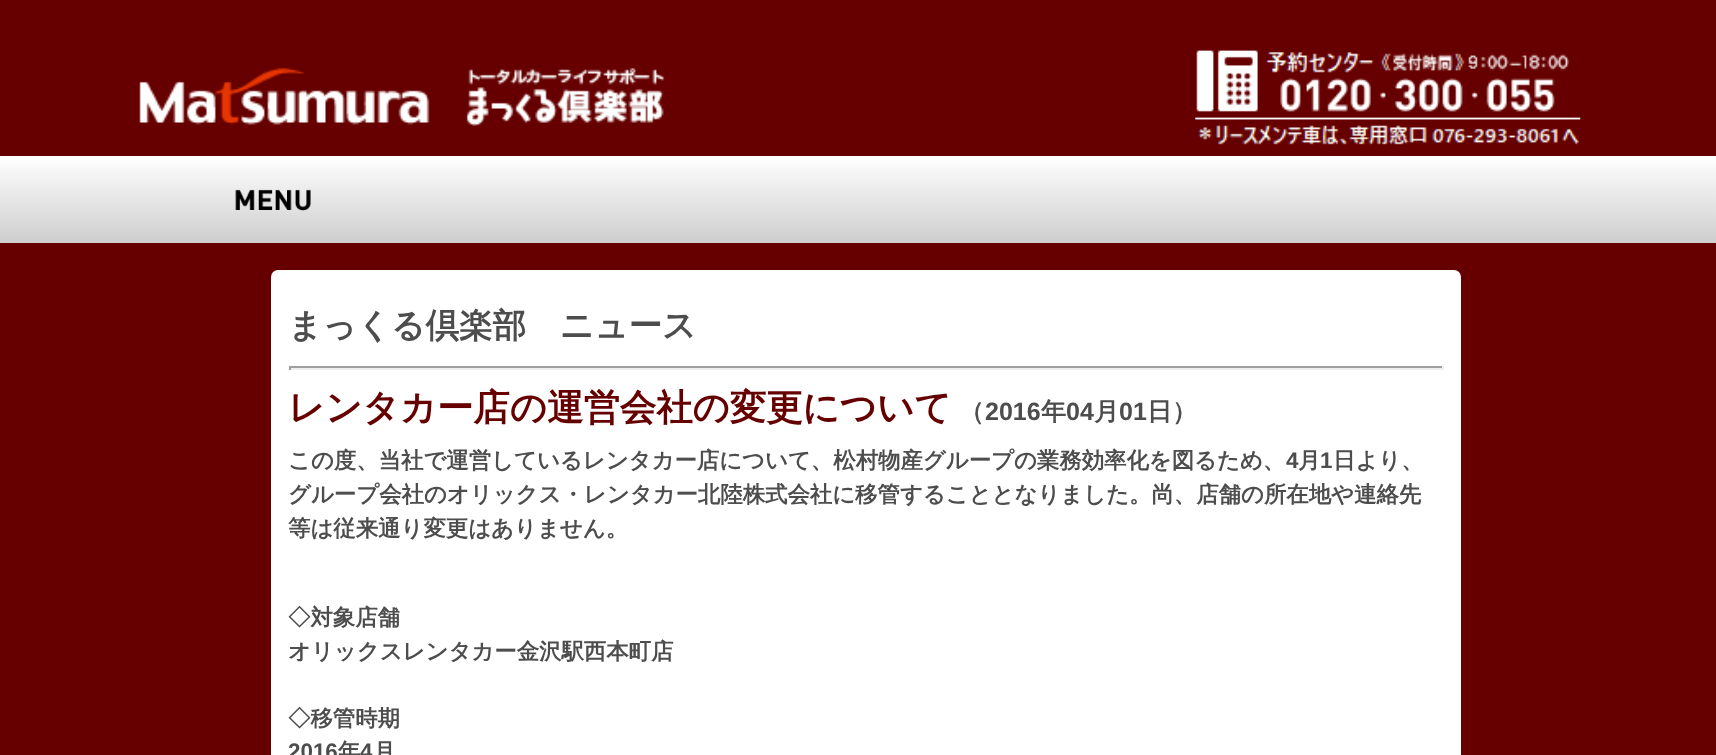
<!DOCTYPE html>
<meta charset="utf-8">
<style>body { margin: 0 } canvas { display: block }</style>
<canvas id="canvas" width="1716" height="755"></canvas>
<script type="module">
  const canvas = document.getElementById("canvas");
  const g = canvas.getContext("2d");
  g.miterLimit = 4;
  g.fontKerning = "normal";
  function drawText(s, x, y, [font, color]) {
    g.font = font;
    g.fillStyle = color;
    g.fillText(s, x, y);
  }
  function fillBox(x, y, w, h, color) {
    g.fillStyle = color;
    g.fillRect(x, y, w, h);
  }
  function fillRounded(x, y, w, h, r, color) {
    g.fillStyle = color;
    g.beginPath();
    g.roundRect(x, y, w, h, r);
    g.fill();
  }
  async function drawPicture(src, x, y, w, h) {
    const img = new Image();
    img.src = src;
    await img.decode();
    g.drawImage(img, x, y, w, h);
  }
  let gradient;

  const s1 = ["bold 33.6px WenQuanYi Zen Hei", "#4D4D4D"];
  const s2 = ["bold 36.4px WenQuanYi Zen Hei", "#660000"];
  const s3 = ["bold 25px WenQuanYi Zen Hei", "#4D4D4D"];
  const s4 = ["bold 25px Liberation Sans", "#4D4D4D"];
  const s5 = ["bold 22.4px WenQuanYi Zen Hei", "#4D4D4D"];
  const s6 = ["bold 22.4px Liberation Sans", "#4D4D4D"];

  fillBox(0, 0, 1716, 755, "#660000");
  await drawPicture("pic1.png", 139, 67, 526, 59);
  await drawPicture("pic2.png", 1195, 50, 386, 95);
  gradient = g.createLinearGradient(858, 156, 858, 243);
  gradient.addColorStop(0, "#FFFFFF");
  gradient.addColorStop(1, "#CECECE");
  g.fillStyle = gradient;
  g.fillRect(0, 156, 1716, 87);
  await drawPicture("pic3.png", 235, 189, 76, 22);
  fillRounded(271, 270, 1190, 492, 7, "#FFFFFF");
  drawText("まっくる倶楽部　ニュース", 288, 337, s1);
  fillBox(289, 366, 1155, 2, "#9F9F9F");
  fillBox(1442, 366, 2, 4, "#EEEEEE");
  fillBox(289, 368, 1155, 2, "#EEEEEE");
  fillBox(289, 366, 2, 4, "#9F9F9F");
  drawText("レンタカー店の運営会社の変更について", 288, 420, s2);
  drawText("（", 959, 420, s3);
  drawText("2016", 985, 420, s4);
  drawText("年", 1041, 420, s3);
  drawText("04", 1066, 420, s4);
  drawText("月", 1094, 420, s3);
  drawText("01", 1119, 420, s4);
  drawText("日）", 1147, 420, s3);
  drawText("この度、当社で運営しているレンタカー店について、松村物産グループの業務効率化を図るため、", 288, 468, s5);
  drawText("4", 1286, 468, s6);
  drawText("月", 1298, 468, s5);
  drawText("1", 1320, 468, s6);
  drawText("日より、", 1333, 468, s5);
  drawText("グループ会社のオリックス・レンタカー北陸株式会社に移管することとなりました。尚、店舗の所在地や連絡先", 288, 502, s5);
  drawText("等は従来通り変更はありません。", 288, 536, s5);
  drawText("◇対象店舗", 288, 625, s5);
  drawText("オリックスレンタカー金沢駅西本町店", 288, 659, s5);
  drawText("◇移管時期", 288, 726, s5);
  drawText("2016", 288, 759, s6);
  drawText("年", 338, 759, s5);
  drawText("4", 360, 759, s6);
  drawText("月", 373, 759, s5);
</script>
